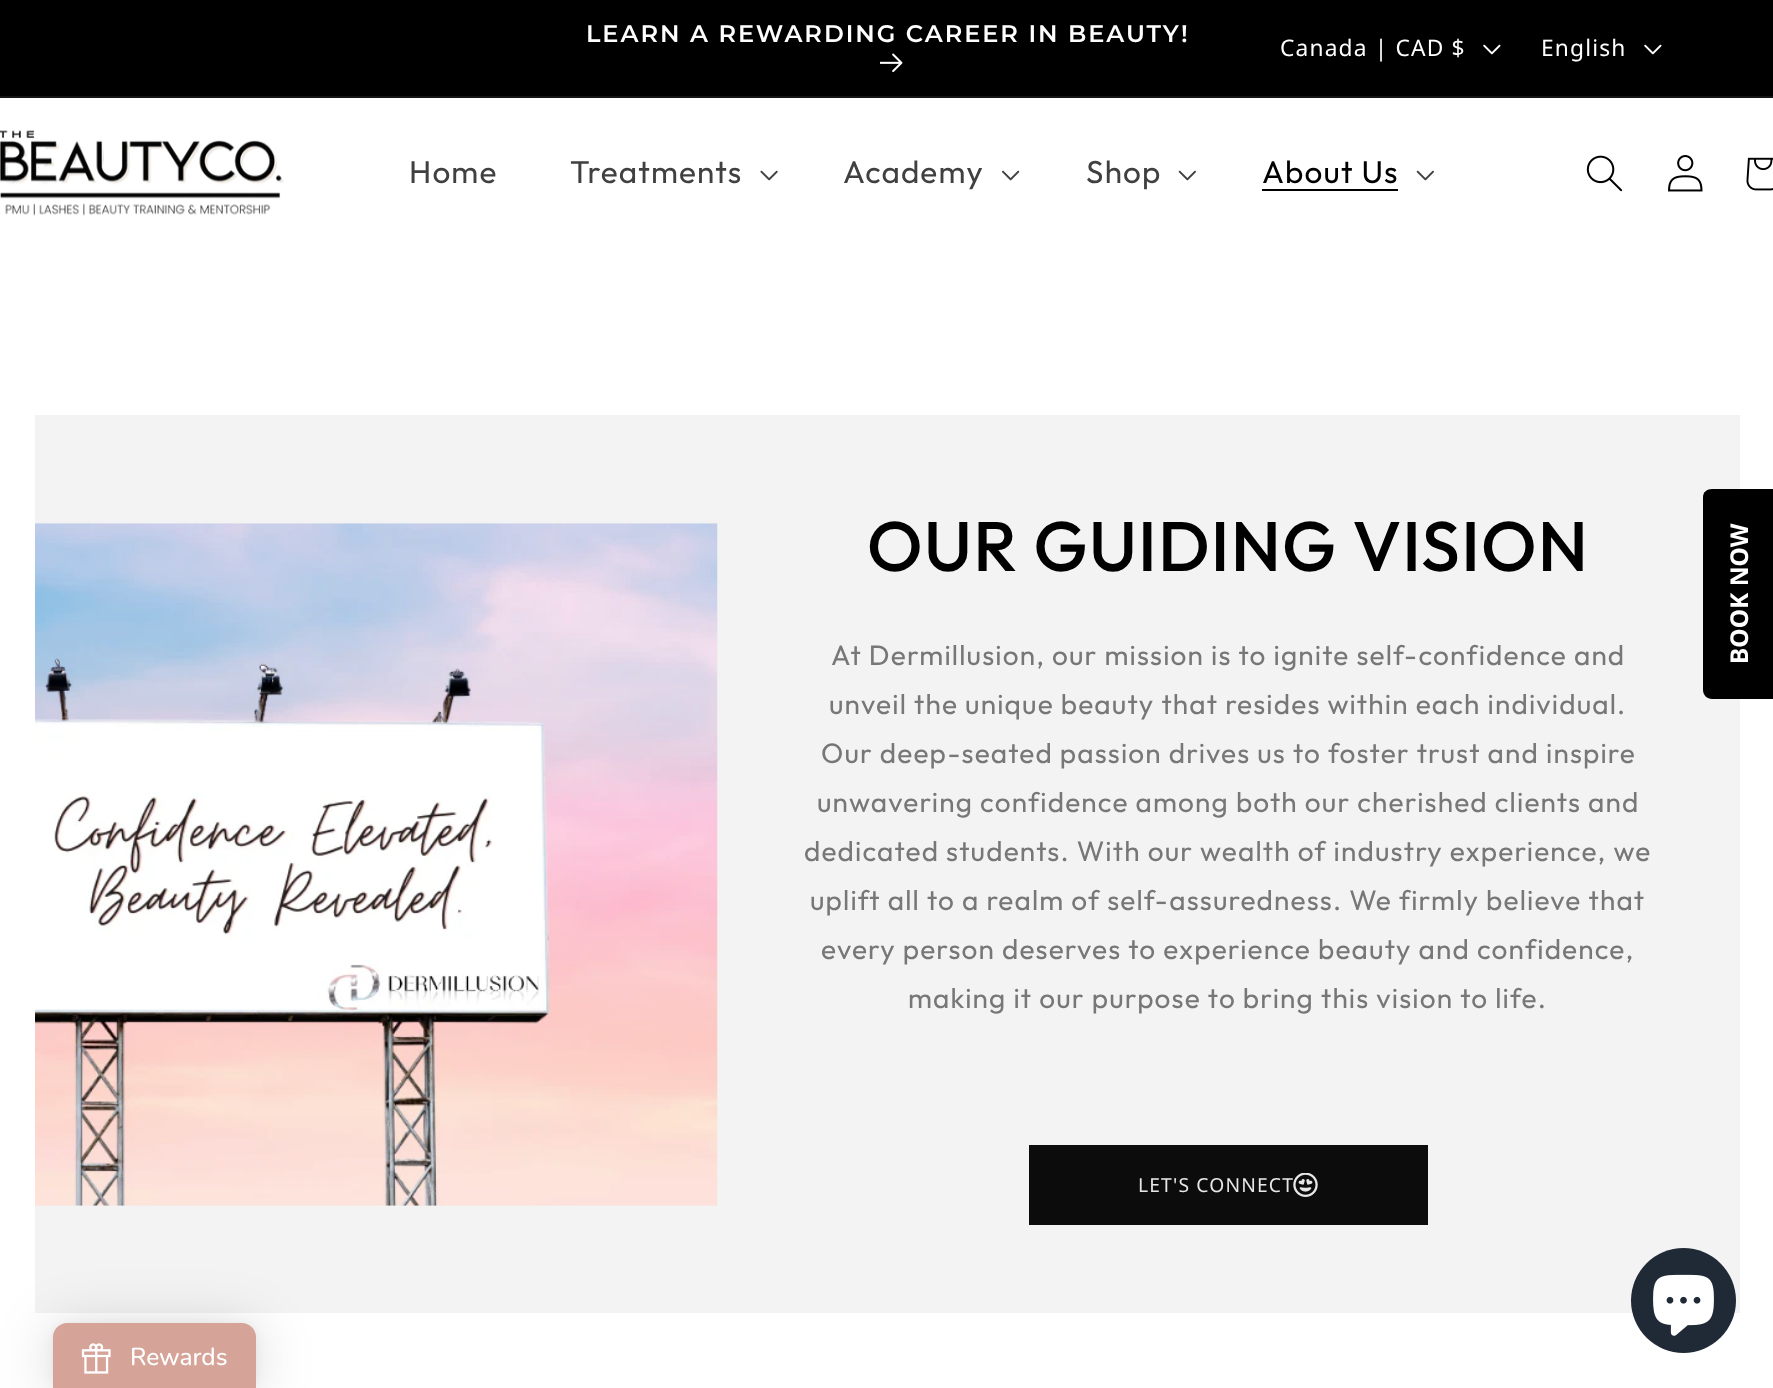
<!DOCTYPE html>
<meta charset="utf-8">
<style>body { margin: 0 } canvas { display: block }</style>
<canvas id="canvas" width="1773" height="1388"></canvas>
<script type="module">
  const canvas = document.getElementById("canvas");
  const g = canvas.getContext("2d");
  g.miterLimit = 4;
  g.fontKerning = "normal";
  function drawText(s, x, y, [font, color]) {
    g.font = font;
    g.fillStyle = color;
    g.fillText(s, x, y);
  }
  function fillBox(x, y, w, h, color) {
    g.fillStyle = color;
    g.fillRect(x, y, w, h);
  }
  async function drawPicture(src, x, y, w, h) {
    const img = new Image();
    img.src = src;
    await img.decode();
    g.drawImage(img, x, y, w, h);
  }

  const s1 = ["600 24.05px Montserrat", "#FFFFFF"];
  const s2 = ["22.75px Noto Sans", "#FFFFFF"];
  const s3 = ["31.5px Outfit", "#404040"];
  const s4 = ["31.5px Outfit", "#000000"];
  const s5 = ["500 70px Outfit", "#000000"];
  const s6 = ["28px Outfit", "#777777"];
  const s7 = ["19.25px Noto Sans", "#E7E7E7"];
  const s8 = ["500 24.5px Nunito", "#FFFFFF"];

  fillBox(0, 0, 1773, 1388, "#000000");
  fillBox(0, 96, 1773, 2, "#141414");
  g.letterSpacing = "1.95px";
  drawText("LEARN A REWARDING CAREER IN BEAUTY!", 586, 42, s1);
  await drawPicture("pic1.png", 880, 53, 23, 20);
  g.letterSpacing = "1.15px";
  drawText("Canada | CAD $", 1280, 56, s2);
  await drawPicture("pic2.png", 1483, 44, 18, 11);
  drawText("English", 1541, 56, s2);
  await drawPicture("pic2.png", 1644, 44, 18, 11);
  fillBox(0, 98, 1773, 1290, "#FFFFFF");
  await drawPicture("pic3.png", 0, 130, 284, 86);
  drawText("Home", 409, 183, s3);
  drawText("Treatments", 570, 183, s3);
  await drawPicture("pic4.png", 760, 170, 18, 11);
  drawText("Academy", 843, 183, s3);
  await drawPicture("pic5.png", 1002, 170, 18, 11);
  drawText("Shop", 1086, 183, s3);
  await drawPicture("pic6.png", 1178, 170, 18, 11);
  drawText("About Us", 1262, 183, s4);
  fillBox(1262, 189, 136, 2, "#000000");
  await drawPicture("pic6.png", 1416, 170, 18, 11);
  await drawPicture("pic7.png", 1586, 155, 37, 37);
  await drawPicture("pic8.png", 1668, 155, 35, 37);
  await drawPicture("pic9.png", 1746, 157, 27, 34);
  fillBox(35, 415, 1705, 898, "#F3F3F3");
  await drawPicture("pic10.png", 35, 523, 683, 683);
  drawText("OUR GUIDING VISION", 867, 571, s5);
  drawText("At Dermillusion, our mission is to ignite self-confidence and", 831, 665, s6);
  drawText("unveil the unique beauty that resides within each individual.", 829, 714, s6);
  drawText("Our deep-seated passion drives us to foster trust and inspire", 821, 763, s6);
  drawText("unwavering confidence among both our cherished clients and", 817, 812, s6);
  drawText("dedicated students. With our wealth of industry experience, we", 804, 861, s6);
  drawText("uplift all to a realm of self-assuredness. We firmly believe that", 810, 910, s6);
  drawText("every person deserves to experience beauty and confidence,", 821, 959, s6);
  drawText("making it our purpose to bring this vision to life.", 908, 1008, s6);
  fillBox(1029, 1145, 399, 80, "#0C0C0C");
  drawText("LET'S CONNECT", 1138, 1192, s7);
  await drawPicture("pic11.png", 1293, 1173, 25, 24);
  g.fillStyle = "#000000";
  g.beginPath();
  g.moveTo(1703, 690);
  g.lineTo(1703, 497);
  g.bezierCurveTo(1703, 492, 1707, 489, 1712, 489);
  g.lineTo(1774, 489);
  g.lineTo(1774, 699);
  g.lineTo(1712, 699);
  g.bezierCurveTo(1707, 699, 1703, 695, 1703, 690);
  g.closePath();
  g.fill();
  g.letterSpacing = "0px";
  g.font = "bold 24.5px Noto Sans";
  g.fillStyle = "#FFFFFF";
  g.save();
  g.translate(1748, 664);
  g.rotate(-90 * Math.PI / 180);
  g.fillText("BOOK NOW", 0, 0);
  g.restore();
  g.fillStyle = "#202A36";
  g.beginPath();
  g.arc(1683.5, 1300.5, 52.5, 0, Math.PI * 2);
  g.fill();
  await drawPicture("pic12.png", 1653, 1274, 61, 62);
  g.fillStyle = "rgba(0, 0, 0, 0.16)";
  g.filter = "blur(28px)";
  g.beginPath();
  g.roundRect(53, 1327, 203, 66, 14);
  g.fill();
  g.filter = "none";
  g.fillStyle = "rgba(0, 0, 0, 0.06)";
  g.filter = "blur(5px)";
  g.beginPath();
  g.roundRect(53, 1325, 203, 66, 14);
  g.fill();
  g.filter = "none";
  g.fillStyle = "#D5A398";
  g.beginPath();
  g.moveTo(67, 1323);
  g.lineTo(242, 1323);
  g.bezierCurveTo(249.5, 1323, 256, 1329.5, 256, 1337);
  g.lineTo(256, 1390);
  g.lineTo(53, 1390);
  g.lineTo(53, 1337);
  g.bezierCurveTo(53, 1329.5, 59.5, 1323, 67, 1323);
  g.closePath();
  g.fill();
  await drawPicture("pic13.png", 81, 1343, 30, 31);
  drawText("Rewards", 130, 1365, s8);
</script>
